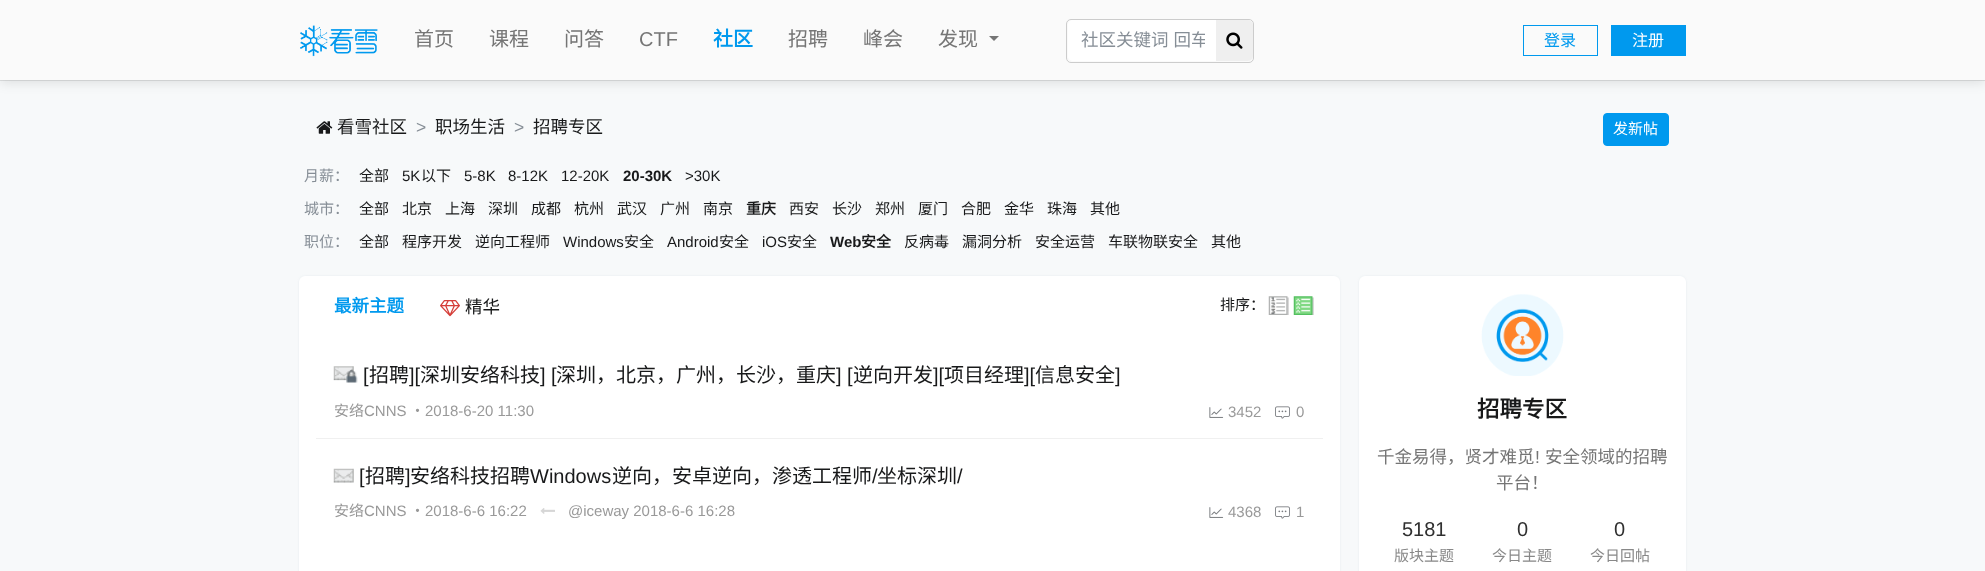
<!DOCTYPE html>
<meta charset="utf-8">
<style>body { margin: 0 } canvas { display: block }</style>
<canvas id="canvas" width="1985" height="571"></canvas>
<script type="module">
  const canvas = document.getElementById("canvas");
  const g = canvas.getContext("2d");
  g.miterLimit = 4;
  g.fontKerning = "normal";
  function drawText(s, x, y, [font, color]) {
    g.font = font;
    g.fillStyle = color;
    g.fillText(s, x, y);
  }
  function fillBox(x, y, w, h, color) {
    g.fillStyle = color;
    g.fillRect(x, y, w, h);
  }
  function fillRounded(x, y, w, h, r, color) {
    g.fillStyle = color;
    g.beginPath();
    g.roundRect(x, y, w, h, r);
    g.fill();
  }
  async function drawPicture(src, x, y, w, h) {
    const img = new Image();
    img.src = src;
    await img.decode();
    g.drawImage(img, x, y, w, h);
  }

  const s1 = ["20px Noto Sans CJK SC", "#757575"];
  const s2 = ["20px Liberation Sans", "#757575"];
  const s3 = ["bold 20px Noto Sans CJK SC", "#0099EE"];
  const s4 = ["17.5px Noto Sans CJK SC", "#868E96"];
  const s5 = ["16px Noto Sans CJK SC", "#0099EE"];
  const s6 = ["16px Noto Sans CJK SC", "#FFFFFF"];
  const s7 = ["17.5px Noto Sans CJK SC", "#18191A"];
  const s8 = ["17.5px Liberation Sans", "#868E96"];
  const s9 = ["15px Noto Sans CJK SC", "#FFFFFF"];
  const s10 = ["15px Noto Sans CJK SC", "#868E96"];
  const s11 = ["15px Noto Sans CJK SC", "#18191A"];
  const s12 = ["15px Liberation Sans", "#18191A"];
  const s13 = ["bold 15px Liberation Sans", "#18191A"];
  const s14 = ["bold 15px Noto Sans CJK SC", "#18191A"];
  const s15 = ["bold 17.5px Noto Sans CJK SC", "#0099EE"];
  const s16 = ["20px Liberation Sans", "#18191A"];
  const s17 = ["20px Noto Sans CJK SC", "#18191A"];
  const s18 = ["15px Noto Sans CJK SC", "#999999"];
  const s19 = ["15px Liberation Sans", "#999999"];
  const s20 = ["bold 22.5px Noto Sans CJK SC", "#18191A"];
  const s21 = ["17.5px Noto Sans CJK SC", "#757575"];
  const s22 = ["17.5px Liberation Sans", "#757575"];
  const s23 = ["20px Liberation Sans", "#303030"];
  const s24 = ["15px Noto Sans CJK SC", "#888888"];

  fillBox(0, 0, 1985, 571, "#F7F9FA");
  fillBox(0, 80, 1985, 1, "#DEE0E1");
  g.fillStyle = "rgba(0, 0, 0, 0.1)";
  g.filter = "blur(6px)";
  g.beginPath();
  g.rect(0, 3, 1985, 80);
  g.fill();
  g.filter = "none";
  fillBox(0, 0, 1985, 80, "#FAFAFA");
  await drawPicture("pic1.png", 300, 25, 78, 32);
  drawText("首页", 414, 46, s1);
  drawText("课程", 489, 46, s1);
  drawText("问答", 564, 46, s1);
  drawText("CTF", 639, 46, s2);
  drawText("社区", 713, 46, s3);
  drawText("招聘", 788, 46, s1);
  drawText("峰会", 863, 46, s1);
  drawText("发现", 938, 46, s1);
  g.beginPath();
  g.moveTo(989, 36);
  g.lineTo(999, 36);
  g.lineTo(994, 41);
  g.closePath();
  g.fill();
  g.beginPath();
  g.roundRect(1066.5, 19.5, 187, 43, 4.5);
  g.strokeStyle = "#CCCCCC";
  g.stroke();
  g.fillStyle = "#FFFFFF";
  g.beginPath();
  g.roundRect(1068, 20, 150, 41, [5, 0, 0, 5]);
  g.fill();
  g.save();
  g.beginPath();
  g.rect(1081, 26, 124, 25);
  g.clip();
  g.wordSpacing = "1px";
  drawText("社区关键词 回车", 1081, 46, s4);
  g.restore();
  g.fillStyle = "#EFEFEF";
  g.beginPath();
  g.roundRect(1216, 20, 37, 41, [0, 5, 5, 0]);
  g.fill();
  await drawPicture("pic2.png", 1226, 32, 17, 17);
  g.strokeStyle = "#0099EE";
  g.strokeRect(1523.5, 25.5, 74, 30);
  drawText("登录", 1544, 46, s5);
  fillBox(1611, 25, 75, 31, "#0099EE");
  drawText("注册", 1632, 46, s6);
  await drawPicture("pic3.png", 316, 121, 17, 13);
  drawText("看雪社区", 337, 133, s7);
  drawText(">", 416, 133, s8);
  drawText("职场生活", 435, 133, s7);
  drawText(">", 514, 133, s8);
  drawText("招聘专区", 533, 133, s7);
  g.fillStyle = "#0099EE";
  g.beginPath();
  g.roundRect(1603.5, 113.5, 65, 32, 3.5);
  g.fill();
  g.stroke();
  drawText("发新帖", 1613, 134, s9);
  drawText("月薪：", 304, 181, s10);
  drawText("全部", 359, 181, s11);
  drawText("5K", 402, 181, s12);
  drawText("以下", 421, 181, s11);
  drawText("5-8K", 464, 181, s12);
  drawText("8-12K", 508, 181, s12);
  drawText("12-20K", 561, 181, s12);
  drawText("20-30K", 623, 181, s13);
  drawText(">30K", 685, 181, s12);
  drawText("城市：", 304, 214, s10);
  drawText("全部", 359, 214, s11);
  drawText("北京", 402, 214, s11);
  drawText("上海", 445, 214, s11);
  drawText("深圳", 488, 214, s11);
  drawText("成都", 531, 214, s11);
  drawText("杭州", 574, 214, s11);
  drawText("武汉", 617, 214, s11);
  drawText("广州", 660, 214, s11);
  drawText("南京", 703, 214, s11);
  drawText("重庆", 746, 214, s14);
  drawText("西安", 789, 214, s11);
  drawText("长沙", 832, 214, s11);
  drawText("郑州", 875, 214, s11);
  drawText("厦门", 918, 214, s11);
  drawText("合肥", 961, 214, s11);
  drawText("金华", 1004, 214, s11);
  drawText("珠海", 1047, 214, s11);
  drawText("其他", 1090, 214, s11);
  drawText("职位：", 304, 247, s10);
  drawText("全部", 359, 247, s11);
  drawText("程序开发", 402, 247, s11);
  drawText("逆向工程师", 475, 247, s11);
  drawText("Windows", 563, 247, s12);
  drawText("安全", 624, 247, s11);
  drawText("Android", 667, 247, s12);
  drawText("安全", 719, 247, s11);
  drawText("iOS", 762, 247, s12);
  drawText("安全", 787, 247, s11);
  drawText("Web", 830, 247, s13);
  drawText("安全", 861, 247, s14);
  drawText("反病毒", 904, 247, s11);
  drawText("漏洞分析", 962, 247, s11);
  drawText("安全运营", 1035, 247, s11);
  drawText("车联物联安全", 1108, 247, s11);
  drawText("其他", 1211, 247, s11);
  g.fillStyle = "rgba(98, 124, 153, 0.1)";
  g.filter = "blur(1px)";
  g.beginPath();
  g.roundRect(299, 276, 1041, 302, 6);
  g.fill();
  g.filter = "none";
  fillRounded(299, 276, 1041, 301, 6, "#FFFFFF");
  drawText("最新主题", 334, 312, s15);
  await drawPicture("pic4.png", 440, 300, 20, 17);
  drawText("精华", 465, 313, s7);
  drawText("排序：", 1220, 310, s11);
  await drawPicture("pic5.png", 1268, 296, 21, 19);
  await drawPicture("pic6.png", 1293, 296, 21, 19);
  fillBox(316, 438, 1007, 1, "#F0F0F0");
  await drawPicture("pic7.png", 333, 366, 25, 17);
  drawText("[", 363, 382, s16);
  drawText("招聘", 369, 382, s17);
  drawText("][", 409, 382, s16);
  drawText("深圳安络科技", 420, 382, s17);
  drawText("] [", 540, 382, s16);
  drawText("深圳，北京，广州，长沙，重庆", 556, 382, s17);
  drawText("] [", 836, 382, s16);
  drawText("逆向开发", 853, 382, s17);
  drawText("][", 933, 382, s16);
  drawText("项目经理", 944, 382, s17);
  drawText("][", 1024, 382, s16);
  drawText("信息安全", 1035, 382, s17);
  drawText("]", 1115, 382, s16);
  drawText("安络", 334, 416, s18);
  drawText("CNNS", 364, 416, s19);
  drawText("・", 410, 416, s18);
  drawText("2018-6-20 11:30", 425, 416, s19);
  await drawPicture("pic8.png", 1209, 407, 15, 11);
  drawText("3452", 1228, 417, s19);
  await drawPicture("pic9.png", 1275, 406, 15, 13);
  drawText("0", 1296, 417, s19);
  await drawPicture("pic10.png", 333, 468, 21, 15);
  drawText("[", 359, 483, s16);
  drawText("招聘", 365, 483, s17);
  drawText("]", 405, 483, s16);
  drawText("安络科技招聘", 410, 483, s17);
  drawText("Windows", 530, 483, s16);
  drawText("逆向，安卓逆向，渗透工程师", 612, 483, s17);
  drawText("/", 872, 483, s16);
  drawText("坐标深圳", 877, 483, s17);
  drawText("/", 957, 483, s16);
  drawText("安络", 334, 516, s18);
  drawText("CNNS", 364, 516, s19);
  drawText("・", 410, 516, s18);
  drawText("2018-6-6 16:22", 425, 516, s19);
  await drawPicture("pic11.png", 540, 508, 15, 6);
  drawText("@iceway 2018-6-6 16:28", 568, 516, s19);
  await drawPicture("pic8.png", 1209, 507, 15, 11);
  drawText("4368", 1228, 517, s19);
  await drawPicture("pic9.png", 1275, 506, 15, 13);
  drawText("1", 1296, 517, s19);
  g.fillStyle = "rgba(98, 124, 153, 0.1)";
  g.filter = "blur(1px)";
  g.beginPath();
  g.roundRect(1359, 276, 327, 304, 6);
  g.fill();
  g.filter = "none";
  fillRounded(1359, 276, 327, 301, 6, "#FFFFFF");
  await drawPicture("pic12.png", 1481, 294, 83, 82);
  drawText("招聘专区", 1477, 417, s20);
  drawText("千金易得，贤才难觅", 1377, 463, s21);
  drawText("!", 1535, 463, s22);
  drawText("安全领域的招聘", 1545, 463, s21);
  drawText("平台！", 1496, 489, s21);
  drawText("5181", 1402, 536, s23);
  drawText("版块主题", 1394, 561, s24);
  drawText("0", 1517, 536, s23);
  drawText("今日主题", 1492, 561, s24);
  drawText("0", 1614, 536, s23);
  drawText("今日回帖", 1590, 561, s24);
</script>
